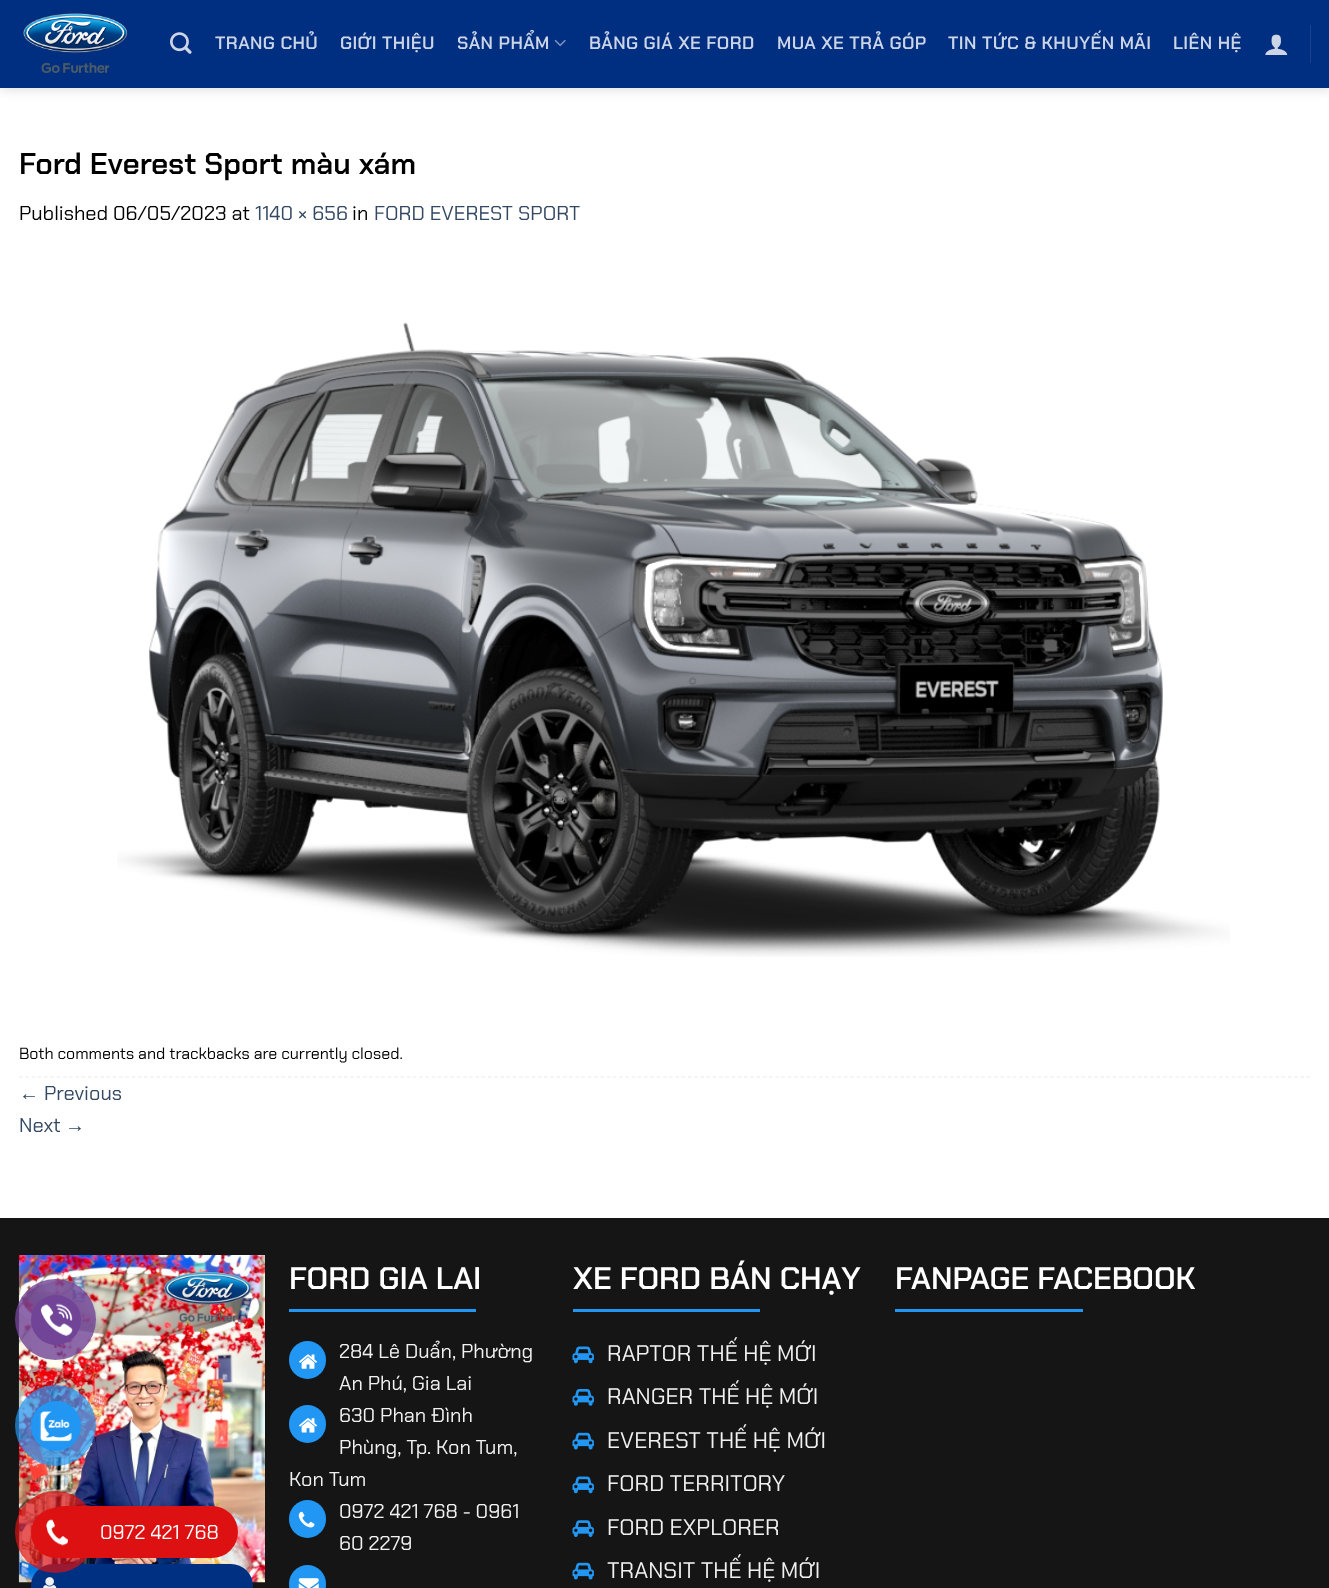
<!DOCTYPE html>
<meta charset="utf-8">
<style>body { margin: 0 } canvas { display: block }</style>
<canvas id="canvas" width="1329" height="1588"></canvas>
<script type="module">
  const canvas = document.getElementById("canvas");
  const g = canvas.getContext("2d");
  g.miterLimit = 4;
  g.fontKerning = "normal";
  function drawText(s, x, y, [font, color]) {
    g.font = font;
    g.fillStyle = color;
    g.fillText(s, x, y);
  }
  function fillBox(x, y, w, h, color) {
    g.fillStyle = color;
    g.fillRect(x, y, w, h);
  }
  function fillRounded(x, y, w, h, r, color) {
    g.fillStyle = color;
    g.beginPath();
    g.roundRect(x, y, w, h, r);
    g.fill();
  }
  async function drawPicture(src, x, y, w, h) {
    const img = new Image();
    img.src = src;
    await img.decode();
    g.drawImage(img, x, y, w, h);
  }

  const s1 = ["600 18px Chakra Petch", "#CCD5E6"];
  const s2 = ["600 30px Chakra Petch", "#000000"];
  const s3 = ["20px Chakra Petch", "#000000"];
  const s4 = ["20px Chakra Petch", "#334862"];
  const s5 = ["16px Chakra Petch", "#000000"];
  const s6 = ["20px Liberation Sans", "#334862"];
  const s7 = ["600 31.25px Chakra Petch", "#FFFFFF"];
  const s8 = ["20px Chakra Petch", "#F1F1F1"];
  const s9 = ["22.5px Chakra Petch", "#F1F1F1"];
  const s10 = ["20px Chakra Petch", "#FFFFFF"];

  fillBox(0, 0, 1329, 1588, "#FFFFFF");
  g.fillStyle = "rgba(0, 0, 0, 0.15)";
  g.filter = "blur(6px)";
  g.beginPath();
  g.rect(1, 1, 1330, 88);
  g.fill();
  g.filter = "none";
  fillBox(0, 0, 1329, 88, "#002E80");
  await drawPicture("pic1.png", 23, 13, 105, 60);
  await drawPicture("pic2.png", 170, 32, 22, 22);
  g.letterSpacing = "0.4px";
  drawText("TRANG CHỦ", 215, 49, s1);
  drawText("GIỚI THIỆU", 340, 49, s1);
  drawText("SẢN PHẨM", 457, 49, s1);
  await drawPicture("pic3.png", 554, 39, 12, 8);
  drawText("BẢNG GIÁ XE FORD", 589, 49, s1);
  drawText("MUA XE TRẢ GÓP", 777, 49, s1);
  drawText("TIN TỨC & KHUYẾN MÃI", 948, 49, s1);
  drawText("LIÊN HỆ", 1173, 49, s1);
  await drawPicture("pic4.png", 1265, 34, 23, 21);
  fillBox(1310, 25, 1, 38, "#1A438D");
  g.letterSpacing = "0px";
  drawText("Ford Everest Sport màu xám", 19, 174, s2);
  drawText("Published 06/05/2023 at", 19, 220, s3);
  drawText("1140 × 656", 255, 220, s4);
  drawText("in", 352, 220, s3);
  drawText("FORD EVEREST SPORT", 374, 220, s4);
  await drawPicture("pic5.png", 117, 322, 1113, 635);
  g.beginPath();
  g.moveTo(19, 1077);
  g.lineTo(1311, 1077);
  g.strokeStyle = "#ECECEC";
  g.lineWidth = 1.2;
  g.setLineDash([3.75, 2.5]);
  g.stroke();
  drawText("Both comments and trackbacks are currently closed.", 19, 1059, s5);
  drawText("←", 19, 1100, s6);
  drawText("Previous", 44, 1100, s4);
  drawText("Next", 19, 1132, s4);
  drawText("→", 65, 1132, s6);
  fillBox(0, 1218, 1329, 370, "#151515");
  await drawPicture("pic6.png", 18, 1255, 247, 328);
  fillRounded(31, 1564, 222, 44, 22, "#003082");
  await drawPicture("pic7.png", 43, 1577, 14, 11);
  drawText("FORD GIA LAI", 289, 1289, s7);
  fillBox(289, 1309, 187, 3, "#2196F3");
  fillRounded(289, 1341, 37, 38, 18.5, "#2196F3");
  await drawPicture("pic8.png", 299, 1354, 18, 15);
  drawText("284 Lê Duẩn, Phường", 339, 1358, s8);
  drawText("An Phú, Gia Lai", 339, 1390, s8);
  fillRounded(289, 1405, 37, 38, 18.5, "#2196F3");
  await drawPicture("pic9.png", 299, 1418, 18, 15);
  drawText("630 Phan Đình", 339, 1422, s8);
  drawText("Phùng, Tp. Kon Tum,", 339, 1454, s8);
  drawText("Kon Tum", 289, 1486, s8);
  fillRounded(289, 1500, 37, 38, 18.5, "#2196F3");
  await drawPicture("pic10.png", 298, 1511, 17, 17);
  drawText("0972 421 768 - 0961", 339, 1518, s8);
  drawText("60 2279", 339, 1550, s8);
  fillRounded(289, 1565, 37, 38, 18.5, "#2196F3");
  await drawPicture("pic11.png", 298, 1578, 21, 10);
  drawText("XE FORD BÁN CHẠY", 573, 1289, s7);
  fillBox(573, 1309, 187, 3, "#2196F3");
  await drawPicture("pic12.png", 572, 1346, 22, 18);
  drawText("RAPTOR THẾ HỆ MỚI", 607, 1361, s9);
  await drawPicture("pic13.png", 572, 1389, 22, 17);
  drawText("RANGER THẾ HỆ MỚI", 607, 1404, s9);
  await drawPicture("pic14.png", 572, 1432, 22, 18);
  drawText("EVEREST THẾ HỆ MỚI", 607, 1448, s9);
  await drawPicture("pic12.png", 572, 1476, 22, 18);
  drawText("FORD TERRITORY", 607, 1491, s9);
  await drawPicture("pic15.png", 572, 1520, 22, 17);
  drawText("FORD EXPLORER", 607, 1535, s9);
  await drawPicture("pic14.png", 572, 1562, 22, 18);
  drawText("TRANSIT THẾ HỆ MỚI", 607, 1578, s9);
  drawText("FANPAGE FACEBOOK", 895, 1289, s7);
  fillBox(895, 1309, 188, 3, "#2196F3");
  g.fillStyle = "rgba(113, 68, 151, 0.8)";
  g.beginPath();
  g.arc(55.5, 1319.5, 40.5, 0, Math.PI * 2);
  g.fill();
  g.fillStyle = "#714497";
  g.beginPath();
  g.arc(56, 1320, 25, 0, Math.PI * 2);
  g.fill();
  await drawPicture("pic16.png", 40, 1303, 33, 33);
  g.fillStyle = "rgba(33, 150, 243, 0.7)";
  g.beginPath();
  g.arc(55.5, 1425.5, 40.5, 0, Math.PI * 2);
  g.fill();
  g.fillStyle = "#2196F3";
  g.beginPath();
  g.arc(56, 1426, 25, 0, Math.PI * 2);
  g.fill();
  await drawPicture("pic17.png", 39, 1411, 33, 31);
  fillRounded(38, 1506, 200, 52, 26, "#DD1111");
  fillRounded(15, 1491, 81, 82, 40.5, "rgba(221, 17, 17, 0.7)");
  g.fillStyle = "#DD1111";
  g.beginPath();
  g.arc(56, 1533, 25, 0, Math.PI * 2);
  g.fill();
  await drawPicture("pic18.png", 46, 1519, 22, 27);
  drawText("0972 421 768", 100, 1539, s10);
</script>
